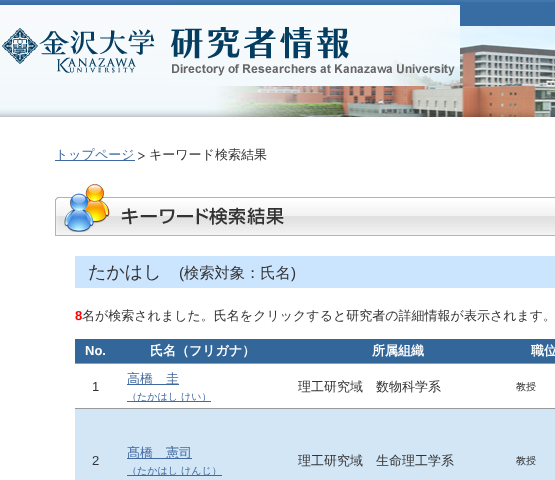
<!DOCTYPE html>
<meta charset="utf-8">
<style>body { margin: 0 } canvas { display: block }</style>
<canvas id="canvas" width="555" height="480"></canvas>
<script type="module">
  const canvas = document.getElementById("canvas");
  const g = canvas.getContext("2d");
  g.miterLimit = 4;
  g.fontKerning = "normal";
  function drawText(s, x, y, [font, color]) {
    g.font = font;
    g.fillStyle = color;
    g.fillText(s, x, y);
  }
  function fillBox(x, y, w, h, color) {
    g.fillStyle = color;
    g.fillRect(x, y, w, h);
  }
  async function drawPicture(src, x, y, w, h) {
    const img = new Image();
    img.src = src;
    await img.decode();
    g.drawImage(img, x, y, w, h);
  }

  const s1 = ["500 13px WenQuanYi Zen Hei", "#4269A0"];
  const s2 = ["500 13px WenQuanYi Zen Hei", "#333333"];
  const s3 = ["500 18px WenQuanYi Zen Hei", "#333333"];
  const s4 = ["15.25px Liberation Sans", "#333333"];
  const s5 = ["500 15.25px WenQuanYi Zen Hei", "#333333"];
  const s6 = ["bold 13px Liberation Sans", "#FF0000"];
  const s7 = ["bold 13px Liberation Sans", "#FFFFFF"];
  const s8 = ["bold 13px WenQuanYi Zen Hei", "#FFFFFF"];
  const s9 = ["13px Liberation Sans", "#333333"];
  const s10 = ["500 10px WenQuanYi Zen Hei", "#4269A0"];
  const s11 = ["500 10px WenQuanYi Zen Hei", "#333333"];

  fillBox(0, 0, 555, 480, "#FFFFFF");
  await drawPicture("pic1.png", 0, 0, 555, 156);
  await drawPicture("pic2.png", 2, 24, 154, 49);
  await drawPicture("pic3.png", 171, 0, 289, 86);
  await drawPicture("pic4.png", 138, 152, 7, 8);
  fillBox(55, 160, 80, 1, "#4269A0");
  drawText("トップページ", 55, 159, s1);
  drawText("キーワード検索結果", 149, 159, s2);
  await drawPicture("pic5.png", 55, 184, 500, 52);
  fillBox(75, 256, 480, 32, "#CCE5FF");
  drawText("たかはし", 88, 278, s3);
  drawText("(", 179, 278, s4);
  drawText("検索対象：氏名", 184, 278, s5);
  drawText(")", 291, 278, s4);
  drawText("8", 75, 320, s6);
  drawText("名が検索されました。氏名をクリックすると研究者の詳細情報が表示されます。", 82, 320, s2);
  fillBox(75, 339, 480, 24, "#336699");
  drawText("No.", 85, 355, s7);
  drawText("氏名（フリガナ）", 150, 355, s8);
  drawText("所属組織", 372, 355, s8);
  fillBox(75, 363, 480, 1, "#999999");
  drawText("職位", 531, 355, s8);
  drawText("1", 92, 391, s9);
  fillBox(127, 384, 52, 1, "#4269A0");
  drawText("高橋　圭", 127, 383, s1);
  fillBox(127, 401, 84, 1, "#4269A0");
  drawText("（たかはし けい）", 127, 400, s10);
  drawText("理工研究域　数物科学系", 298, 391, s2);
  fillBox(75, 408, 480, 1, "#999999");
  drawText("教授", 516, 390, s11);
  fillBox(75, 409, 480, 71, "#D3E6F6");
  drawText("2", 92, 465, s9);
  fillBox(127, 458, 65, 1, "#4269A0");
  drawText("髙橋　憲司", 127, 457, s1);
  fillBox(127, 475, 95, 1, "#4269A0");
  drawText("（たかはし けんじ）", 127, 474, s10);
  drawText("理工研究域　生命理工学系", 298, 465, s2);
  drawText("教授", 516, 464, s11);
</script>
